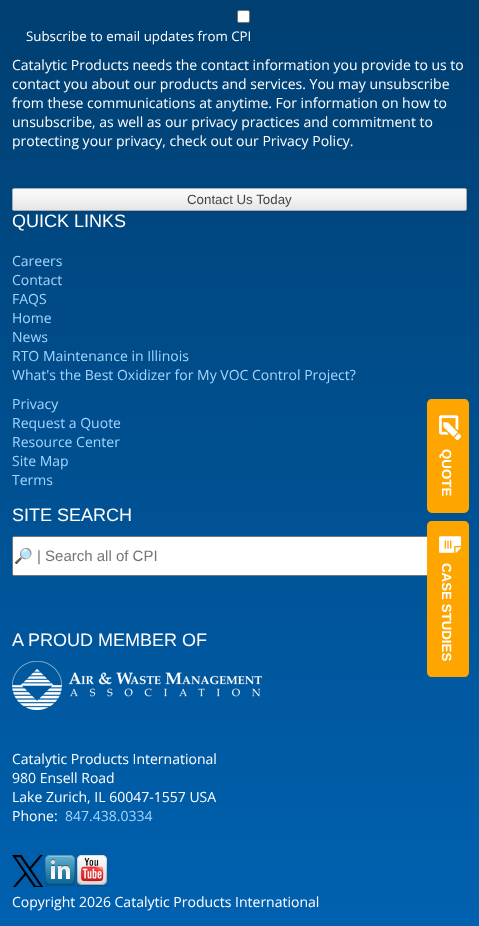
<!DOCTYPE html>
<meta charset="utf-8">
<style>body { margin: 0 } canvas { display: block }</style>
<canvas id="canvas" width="479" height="926"></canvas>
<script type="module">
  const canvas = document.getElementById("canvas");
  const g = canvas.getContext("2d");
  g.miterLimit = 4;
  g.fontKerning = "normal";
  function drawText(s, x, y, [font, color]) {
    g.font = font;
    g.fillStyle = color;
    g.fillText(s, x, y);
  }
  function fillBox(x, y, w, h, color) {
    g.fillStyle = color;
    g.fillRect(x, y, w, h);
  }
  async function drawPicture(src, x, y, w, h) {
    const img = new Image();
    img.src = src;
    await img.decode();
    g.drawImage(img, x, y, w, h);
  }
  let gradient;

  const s1 = ["13.3px Open Sans", "#FFFFFF"];
  const s2 = ["14px Open Sans", "#FFFFFF"];
  const s3 = ["13.3px Liberation Sans", "#444444"];
  const s4 = ["18px Liberation Sans", "#FFFFFF"];
  const s5 = ["14px Open Sans", "#A3D6FF"];
  const s6 = ["15px Noto Color Emoji", "#757575"];
  const s7 = ["15px Liberation Sans", "#757575"];

  fillBox(0, 0, 479, 926, "#FFFFFF");
  gradient = g.createLinearGradient(239, -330, 240, 926);
  gradient.addColorStop(0, "#00335B");
  gradient.addColorStop(1, "#0061B0");
  gradient.addColorStop(1, "#7DB9E8");
  g.fillStyle = gradient;
  g.fillRect(0, 0, 479, 926);
  g.fillStyle = "#FFFFFF";
  g.beginPath();
  g.roundRect(237.5, 10.5, 12, 12, 1.5);
  g.fill();
  g.strokeStyle = "#767676";
  g.stroke();
  drawText("Subscribe to email updates from CPI", 26, 41, s1);
  drawText("Catalytic Products needs the contact information you provide to us to", 12, 70, s2);
  drawText("contact you about our products and services. You may unsubscribe", 12, 89, s2);
  drawText("from these communications at anytime. For information on how to", 12, 108, s2);
  drawText("unsubscribe, as well as our privacy practices and commitment to", 12, 127, s2);
  drawText("protecting your privacy, check out our Privacy Policy.", 12, 146, s2);
  g.fillStyle = "rgba(0, 0, 0, 0.1)";
  g.filter = "blur(1.5px)";
  g.beginPath();
  g.roundRect(12, 189, 455, 23, 2);
  g.fill();
  g.filter = "none";
  g.save();
  g.beginPath();
  g.roundRect(12, 188, 455, 23, 2);
  g.clip();
  gradient = g.createLinearGradient(240, 189, 240, 210);
  gradient.addColorStop(0, "#FAFAFA");
  gradient.addColorStop(0.4, "#F4F4F4");
  gradient.addColorStop(1, "#E5E5E5");
  g.fillStyle = gradient;
  g.fillRect(12, 189, 455, 21);
  g.restore();
  g.beginPath();
  g.roundRect(12.5, 188.5, 454, 22, 1.5);
  g.strokeStyle = "#AAAAAA";
  g.stroke();
  drawText("Contact Us Today", 187, 204, s3);
  drawText("QUICK LINKS", 12, 227, s4);
  drawText("Careers", 12, 266, s5);
  drawText("Contact", 12, 285, s5);
  drawText("FAQS", 12, 304, s5);
  drawText("Home", 12, 323, s5);
  drawText("News", 12, 342, s5);
  drawText("RTO Maintenance in Illinois", 12, 361, s5);
  drawText("What's the Best Oxidizer for My VOC Control Project?", 12, 380, s5);
  drawText("Privacy", 12, 409, s5);
  drawText("Request a Quote", 12, 428, s5);
  drawText("Resource Center", 12, 447, s5);
  drawText("Site Map", 12, 466, s5);
  drawText("Terms", 12, 485, s5);
  drawText("SITE SEARCH", 12, 521, s4);
  g.beginPath();
  g.roundRect(12.5, 536.5, 454, 39, 1.5);
  g.fill();
  g.strokeStyle = "#767676";
  g.stroke();
  drawText("🔎", 14, 561, s6);
  drawText("| Search all of CPI", 37, 561, s7);
  drawText("A PROUD MEMBER OF", 12, 646, s4);
  await drawPicture("pic1.png", 12, 661, 250, 49);
  drawText("Catalytic Products International", 12, 764, s2);
  drawText("980 Ensell Road", 12, 783, s2);
  drawText("Lake Zurich, IL 60047-1557 USA", 12, 802, s2);
  drawText("Phone:", 12, 821, s2);
  drawText("847.438.0334", 65, 821, s5);
  await drawPicture("pic2.png", 12, 855, 32, 32);
  await drawPicture("pic3.png", 45, 855, 30, 32);
  await drawPicture("pic4.png", 76, 855, 32, 32);
  drawText("Copyright 2026 Catalytic Products International", 12, 907, s2);
  g.fillStyle = "#FFA500";
  g.beginPath();
  g.moveTo(469, 404);
  g.lineTo(469, 508);
  g.bezierCurveTo(469, 510, 467, 513, 464, 513);
  g.lineTo(432, 513);
  g.bezierCurveTo(429, 513, 427, 510, 427, 508);
  g.lineTo(427, 404);
  g.bezierCurveTo(427, 401, 429, 399, 432, 399);
  g.lineTo(464, 399);
  g.bezierCurveTo(467, 399, 469, 401, 469, 404);
  g.closePath();
  g.fill();
  await drawPicture("pic5.png", 439, 415, 22, 25);
  g.font = "bold 13.3px Liberation Sans";
  g.fillStyle = "#FFFFFF";
  g.save();
  g.translate(442, 449);
  g.rotate(90 * Math.PI / 180);
  g.fillText("QUOTE", 0, 0);
  g.restore();
  g.fillStyle = "#FFA500";
  g.beginPath();
  g.moveTo(469, 526);
  g.lineTo(469, 672);
  g.bezierCurveTo(469, 675, 467, 677, 464, 677);
  g.lineTo(432, 677);
  g.bezierCurveTo(429, 677, 427, 675, 427, 672);
  g.lineTo(427, 526);
  g.bezierCurveTo(427, 523, 429, 521, 432, 521);
  g.lineTo(464, 521);
  g.bezierCurveTo(467, 521, 469, 523, 469, 526);
  g.closePath();
  g.fill();
  await drawPicture("pic6.png", 439, 536, 23, 17);
  g.fillStyle = "#FFFFFF";
  g.save();
  g.translate(442, 563);
  g.rotate(90 * Math.PI / 180);
  g.fillText("CASE STUDIES", 0, 0);
  g.restore();
</script>
